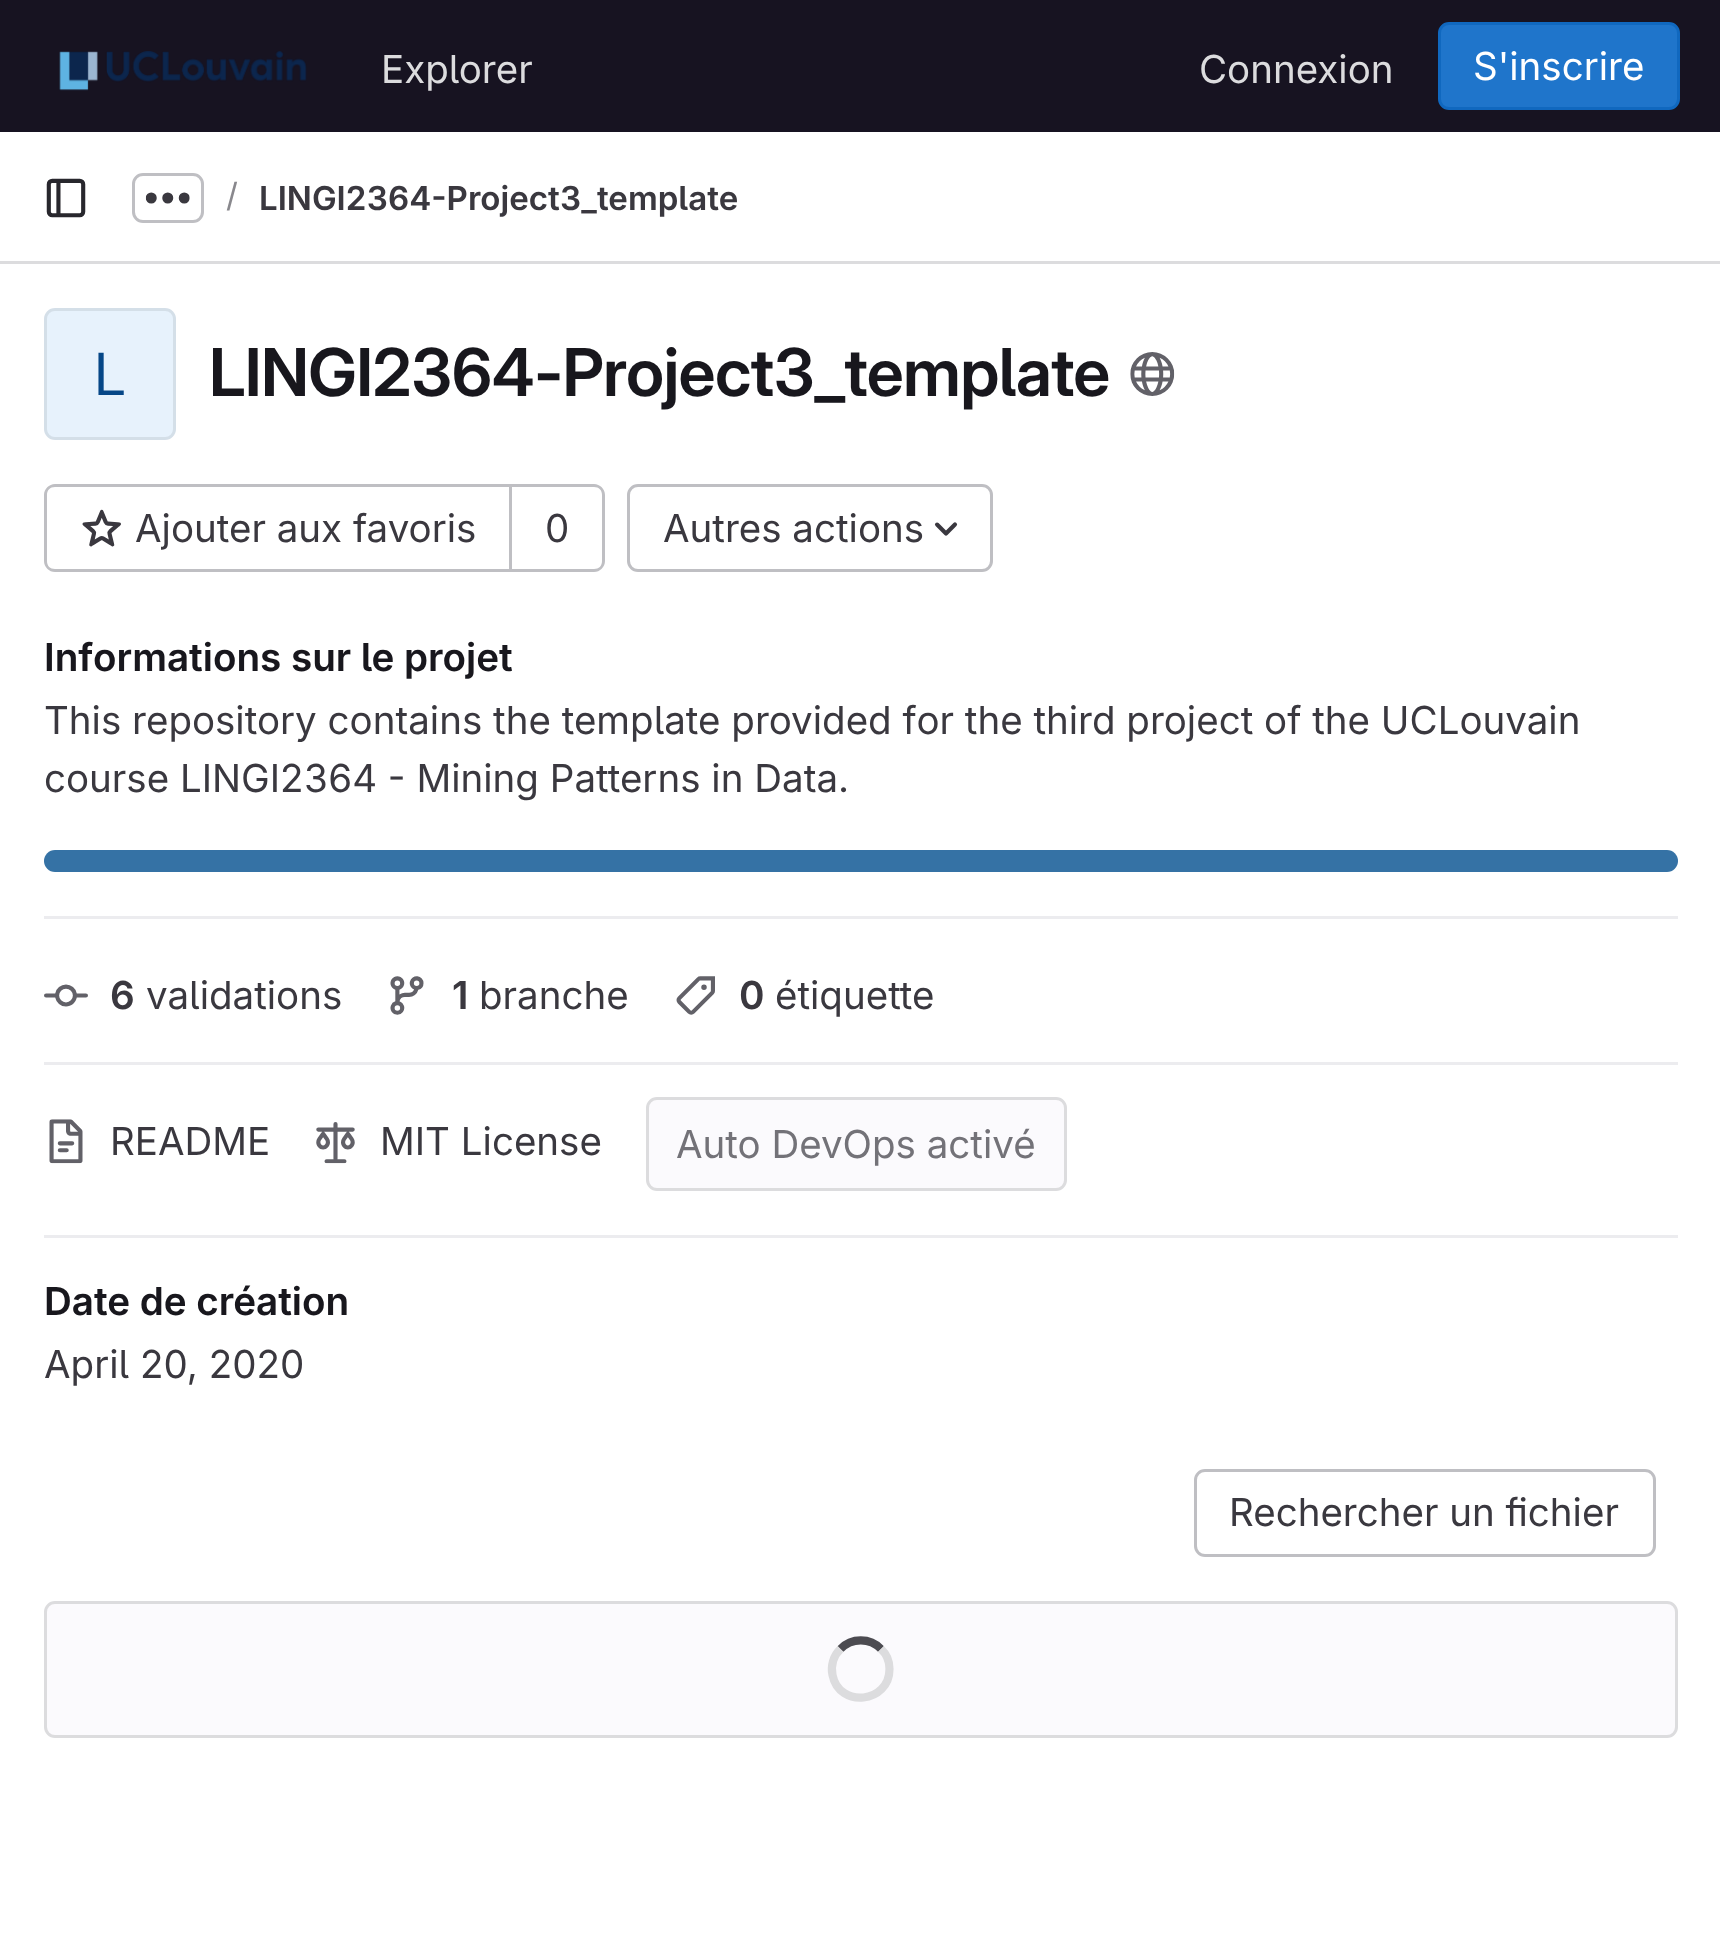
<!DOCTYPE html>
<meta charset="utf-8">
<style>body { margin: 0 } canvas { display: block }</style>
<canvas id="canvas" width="1720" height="1957"></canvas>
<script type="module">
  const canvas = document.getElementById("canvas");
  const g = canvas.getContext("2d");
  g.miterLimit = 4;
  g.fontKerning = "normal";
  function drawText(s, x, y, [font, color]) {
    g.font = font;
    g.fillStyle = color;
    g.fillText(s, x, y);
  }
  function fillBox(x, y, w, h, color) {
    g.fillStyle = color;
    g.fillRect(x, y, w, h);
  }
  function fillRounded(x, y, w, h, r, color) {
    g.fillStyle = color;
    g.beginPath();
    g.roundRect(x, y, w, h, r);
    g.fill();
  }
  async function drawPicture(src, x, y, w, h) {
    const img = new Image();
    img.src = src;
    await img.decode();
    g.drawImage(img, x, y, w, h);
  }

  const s1 = ["38.5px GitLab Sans", "#DCDCDE"];
  const s2 = ["38.5px GitLab Sans", "#FFFFFF"];
  const s3 = ["33px GitLab Sans", "#89888D"];
  const s4 = ["600 33px 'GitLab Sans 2'", "#3A383F"];
  const s5 = ["58px 'GitLab Sans 2'", "#064787"];
  const s6 = ["600 66px GitLab Sans", "#18171D"];
  const s7 = ["38.5px GitLab Sans", "#3A383F"];
  const s8 = ["600 38.5px 'GitLab Sans 2'", "#18171D"];
  const s9 = ["600 38.5px 'GitLab Sans 2'", "#3A383F"];
  const s10 = ["38.5px GitLab Sans", "#737278"];

  fillBox(0, 0, 1720, 1957, "#FFFFFF");
  fillBox(0, 0, 1720, 132, "#171321");
  await drawPicture("pic1.png", 59, 51, 248, 40);
  drawText("Explorer", 381, 83, s1);
  drawText("Connexion", 1199, 83, s1);
  g.fillStyle = "#1F75CB";
  g.beginPath();
  g.roundRect(1439.5, 23.5, 239, 85, 9.5);
  g.fill();
  g.strokeStyle = "#1068BF";
  g.lineWidth = 3;
  g.stroke();
  drawText("S'inscrire", 1473, 80, s2);
  fillBox(0, 261, 1720, 3, "#DCDCDE");
  await drawPicture("pic2.png", 46, 178, 40, 40);
  g.beginPath();
  g.roundRect(133.5, 174.5, 69, 47, 9.5);
  g.strokeStyle = "#BFBFC3";
  g.stroke();
  await drawPicture("pic3.png", 145, 192, 45, 12);
  drawText("/", 226, 207, s3);
  drawText("LINGI2364-Project3_template", 259, 210, s4);
  fillRounded(44, 308, 132, 132, 11, "#E7F2FC");
  g.beginPath();
  g.roundRect(45.5, 309.5, 129, 129, 9.5);
  g.strokeStyle = "rgba(5, 5, 6, 0.08)";
  g.stroke();
  drawText("L", 94, 395, s5);
  g.letterSpacing = "-0.65px";
  drawText("LINGI2364-Project3_template", 209, 396, s6);
  await drawPicture("pic4.png", 1130, 352, 45, 44);
  g.fillStyle = "#BFBFC3";
  g.beginPath();
  g.moveTo(55, 484);
  g.lineTo(509, 484);
  g.lineTo(509, 572);
  g.lineTo(55, 572);
  g.bezierCurveTo(49, 572, 44, 567, 44, 561);
  g.lineTo(44, 495);
  g.bezierCurveTo(44, 489, 49, 484, 55, 484);
  g.closePath();
  g.moveTo(55, 487);
  g.lineTo(509, 487);
  g.lineTo(509, 569);
  g.lineTo(55, 569);
  g.bezierCurveTo(50, 569, 47, 566, 47, 561);
  g.lineTo(47, 495);
  g.bezierCurveTo(47, 490, 50, 487, 55, 487);
  g.closePath();
  g.fill("evenodd");
  await drawPicture("pic5.png", 82, 509, 39, 38);
  g.letterSpacing = "0px";
  drawText("Ajouter aux favoris", 135, 542, s7);
  g.fillStyle = "#BFBFC3";
  g.beginPath();
  g.moveTo(512, 484);
  g.lineTo(594, 484);
  g.bezierCurveTo(600, 484, 605, 489, 605, 495);
  g.lineTo(605, 561);
  g.bezierCurveTo(605, 567, 600, 572, 594, 572);
  g.lineTo(512, 572);
  g.closePath();
  g.moveTo(512, 487);
  g.lineTo(594, 487);
  g.bezierCurveTo(599, 487, 602, 490, 602, 495);
  g.lineTo(602, 561);
  g.bezierCurveTo(602, 566, 599, 569, 594, 569);
  g.lineTo(512, 569);
  g.closePath();
  g.fill("evenodd");
  fillBox(509, 484, 3, 88, "#BFBFC3");
  drawText("0", 545, 542, s7);
  g.beginPath();
  g.roundRect(628.5, 485.5, 363, 85, 9.5);
  g.strokeStyle = "#BFBFC3";
  g.stroke();
  drawText("Autres actions", 663, 542, s7);
  await drawPicture("pic6.png", 934, 522, 24, 14);
  fillBox(44, 916, 1634, 3, "#ECECEF");
  drawText("Informations sur le projet", 44, 671, s8);
  drawText("This repository contains the template provided for the third project of the UCLouvain", 44, 734, s7);
  drawText("course LINGI2364 - Mining Patterns in Data.", 44, 792, s7);
  fillRounded(44, 850, 1634, 22, 11, "#3572A5");
  fillBox(44, 1062, 1634, 3, "#ECECEF");
  await drawPicture("pic7.png", 44, 984, 44, 23);
  drawText("6", 110, 1009, s9);
  drawText("validations", 146, 1009, s7);
  await drawPicture("pic8.png", 390, 976, 34, 39);
  drawText("1", 452, 1009, s9);
  drawText("branche", 479, 1009, s7);
  await drawPicture("pic9.png", 676, 976, 39, 39);
  drawText("0", 739, 1009, s9);
  drawText("étiquette", 775, 1009, s7);
  fillBox(44, 1235, 1634, 3, "#ECECEF");
  await drawPicture("pic10.png", 49, 1119, 34, 45);
  drawText("README", 110, 1155, s7);
  await drawPicture("pic11.png", 316, 1122, 39, 42);
  drawText("MIT License", 380, 1155, s7);
  g.fillStyle = "#FBFAFD";
  g.beginPath();
  g.roundRect(647.5, 1098.5, 418, 91, 9.5);
  g.fill();
  g.strokeStyle = "#DCDCDE";
  g.stroke();
  drawText("Auto DevOps activé", 676, 1158, s10);
  drawText("Date de création", 44, 1315, s8);
  drawText("April 20, 2020", 44, 1378, s7);
  g.beginPath();
  g.roundRect(1195.5, 1470.5, 459, 85, 9.5);
  g.strokeStyle = "#BFBFC3";
  g.stroke();
  drawText("Rechercher un fichier", 1229, 1526, s7);
  g.fillStyle = "#FBFAFD";
  g.beginPath();
  g.roundRect(45.5, 1602.5, 1631, 134, 9.5);
  g.fill();
  g.strokeStyle = "#DCDCDE";
  g.stroke();
  g.beginPath();
  g.moveTo(840.5, 1649);
  g.bezierCurveTo(851.5, 1637.5, 870, 1637.5, 881, 1649);
  g.strokeStyle = "#4C4B51";
  g.lineWidth = 8.2;
  g.stroke();
  g.beginPath();
  g.moveTo(881, 1649);
  g.bezierCurveTo(886.5, 1654, 889.5, 1661.5, 889.5, 1669);
  g.bezierCurveTo(889.5, 1703.5, 839, 1708.5, 832.5, 1675);
  g.bezierCurveTo(830.5, 1665.5, 833.5, 1655.5, 840.5, 1649);
  g.strokeStyle = "#DCDCDE";
  g.stroke();
</script>
